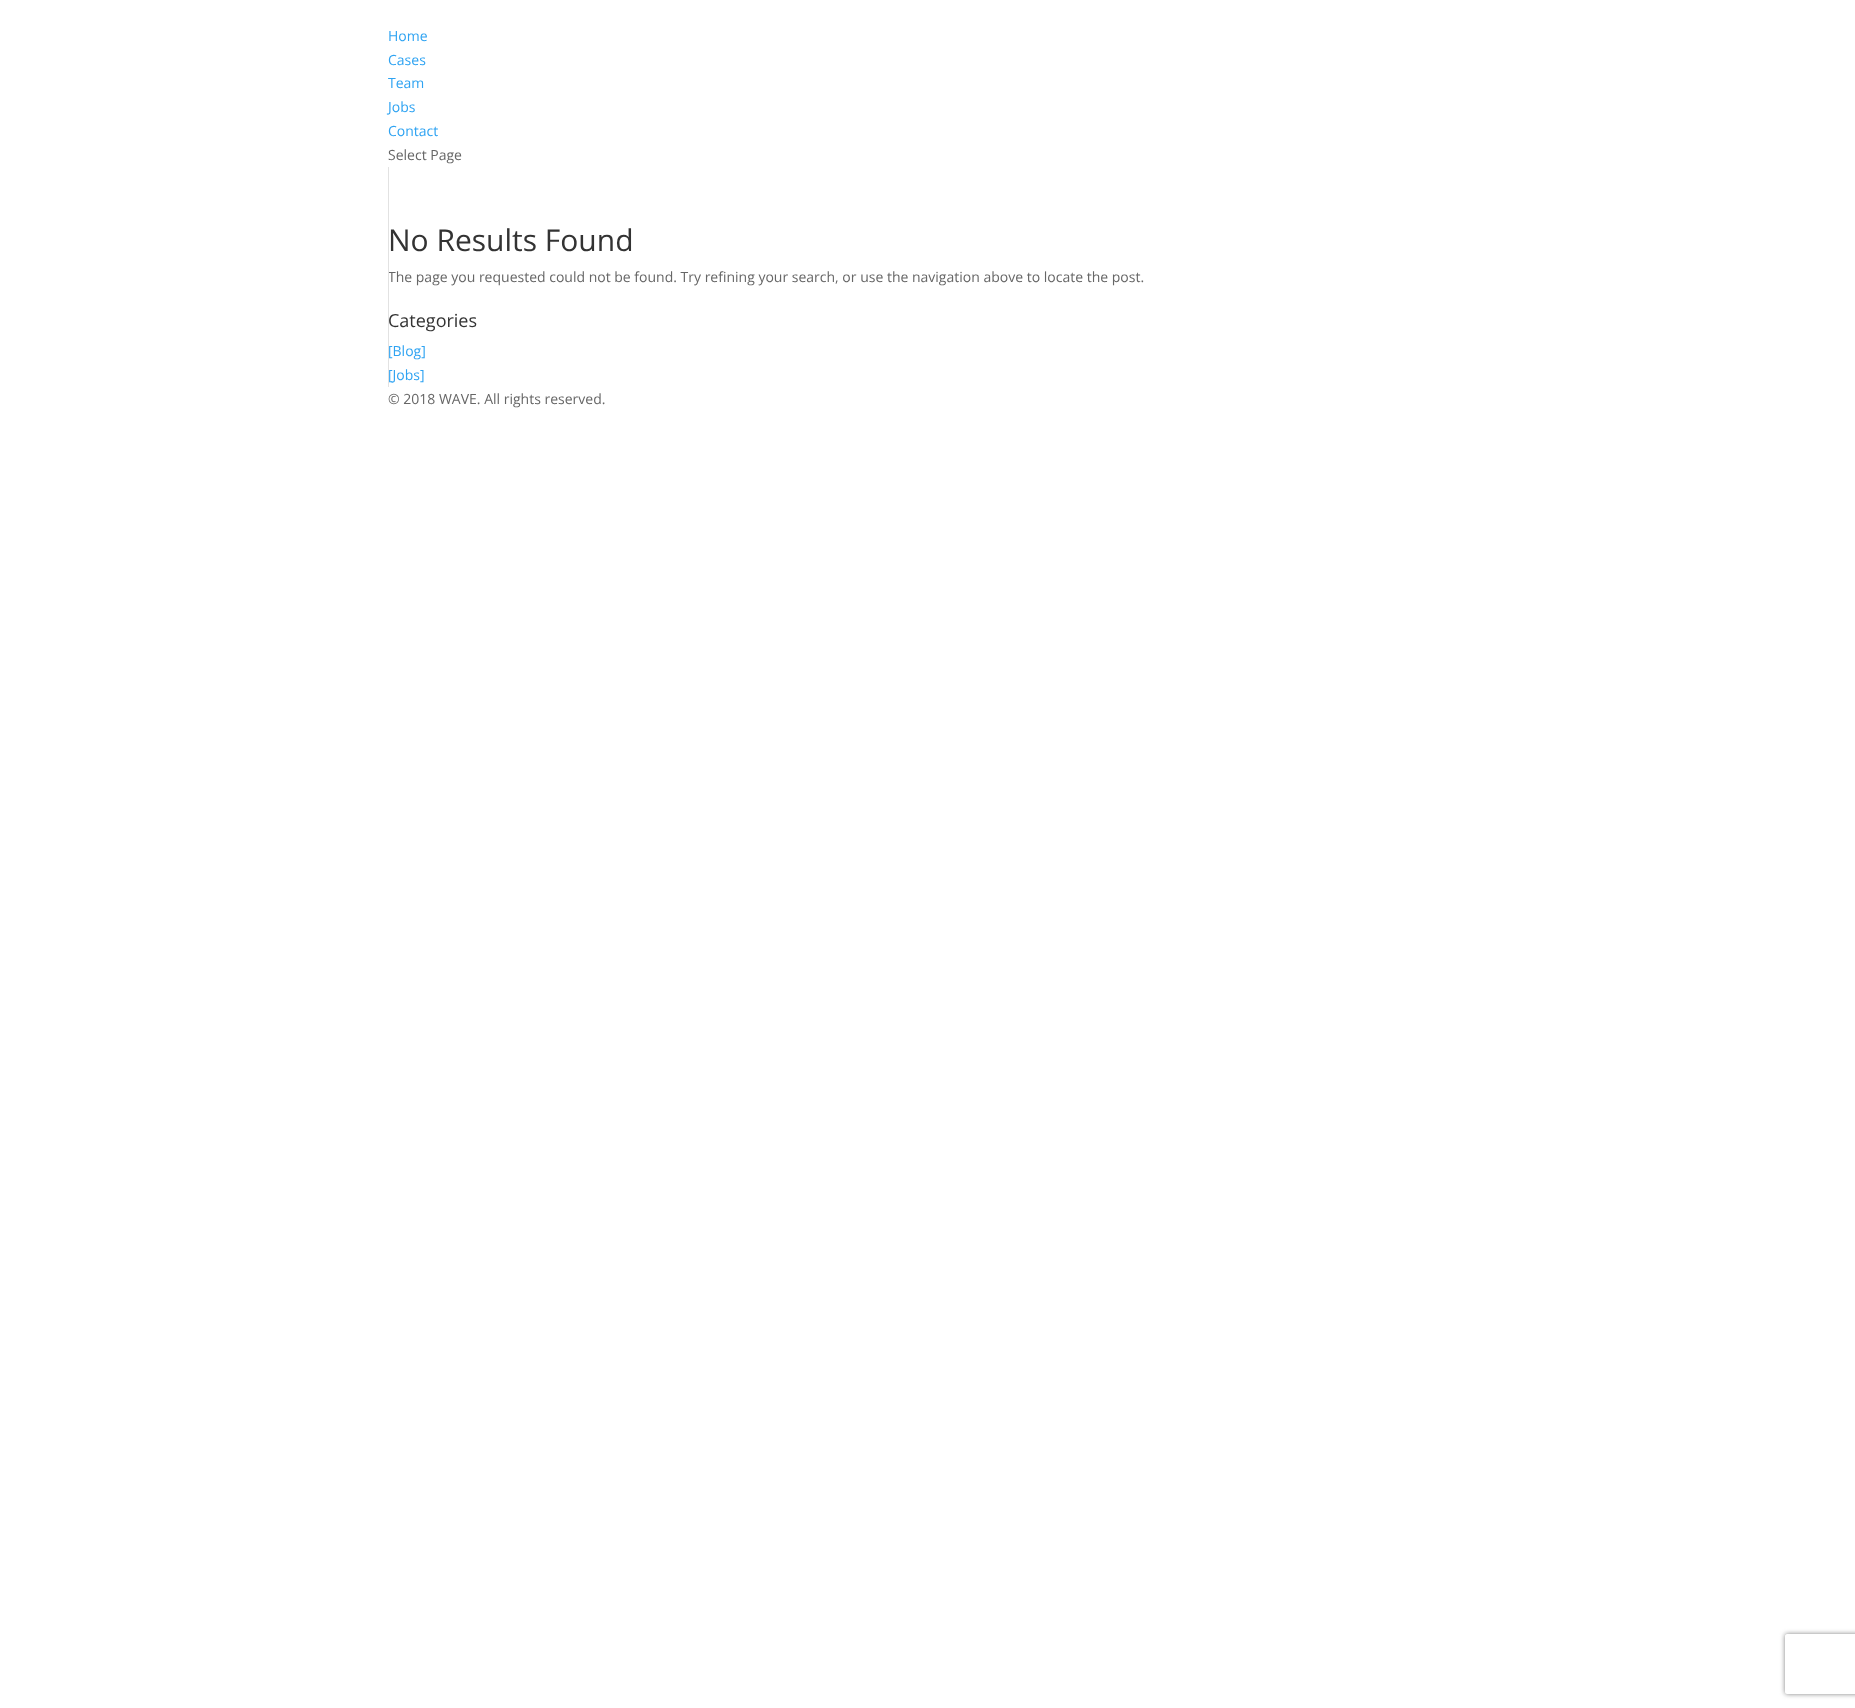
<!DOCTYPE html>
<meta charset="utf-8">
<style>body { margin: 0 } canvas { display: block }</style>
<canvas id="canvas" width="1855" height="1708"></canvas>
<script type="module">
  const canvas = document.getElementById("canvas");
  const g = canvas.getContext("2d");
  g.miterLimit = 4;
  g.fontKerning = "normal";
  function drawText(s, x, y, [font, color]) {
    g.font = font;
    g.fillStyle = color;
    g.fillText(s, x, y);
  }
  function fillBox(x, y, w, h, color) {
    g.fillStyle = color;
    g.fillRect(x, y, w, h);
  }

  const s1 = ["14px Open Sans", "#2EA3F2"];
  const s2 = ["14px Open Sans", "#666666"];
  const s3 = ["18px Open Sans", "#333333"];
  const s4 = ["30px Open Sans", "#333333"];

  fillBox(0, 0, 1855, 1708, "#FFFFFF");
  drawText("Home", 388, 41, s1);
  drawText("Cases", 388, 65, s1);
  drawText("Team", 388, 88, s1);
  drawText("Jobs", 388, 112, s1);
  drawText("Contact", 388, 136, s1);
  drawText("Select Page", 388, 160, s2);
  drawText("The page you requested could not be found. Try refining your search, or use the navigation above to locate the post.", 388, 282, s2);
  drawText("Categories", 388, 327, s3);
  drawText("[Blog]", 388, 356, s1);
  drawText("[Jobs]", 388, 380, s1);
  fillBox(388, 167, 1, 220, "#E2E2E2");
  drawText("No Results Found", 388, 251, s4);
  drawText("© 2018 WAVE. All rights reserved.", 388, 404, s2);
  g.save();
  g.beginPath();
  g.moveTo(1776, 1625);
  g.lineTo(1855, 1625);
  g.lineTo(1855, 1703);
  g.lineTo(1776, 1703);
  g.closePath();
  g.moveTo(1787, 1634);
  g.lineTo(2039, 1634);
  g.bezierCurveTo(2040, 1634, 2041, 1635, 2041, 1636);
  g.lineTo(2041, 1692);
  g.bezierCurveTo(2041, 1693, 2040, 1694, 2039, 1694);
  g.lineTo(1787, 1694);
  g.bezierCurveTo(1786, 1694, 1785, 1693, 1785, 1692);
  g.lineTo(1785, 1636);
  g.bezierCurveTo(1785, 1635, 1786, 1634, 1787, 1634);
  g.closePath();
  g.clip("evenodd");
  g.fillStyle = "#808080";
  g.filter = "blur(2.5px)";
  g.beginPath();
  g.roundRect(1785, 1634, 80, 60, 2);
  g.fill();
  g.filter = "none";
  g.restore();
</script>
